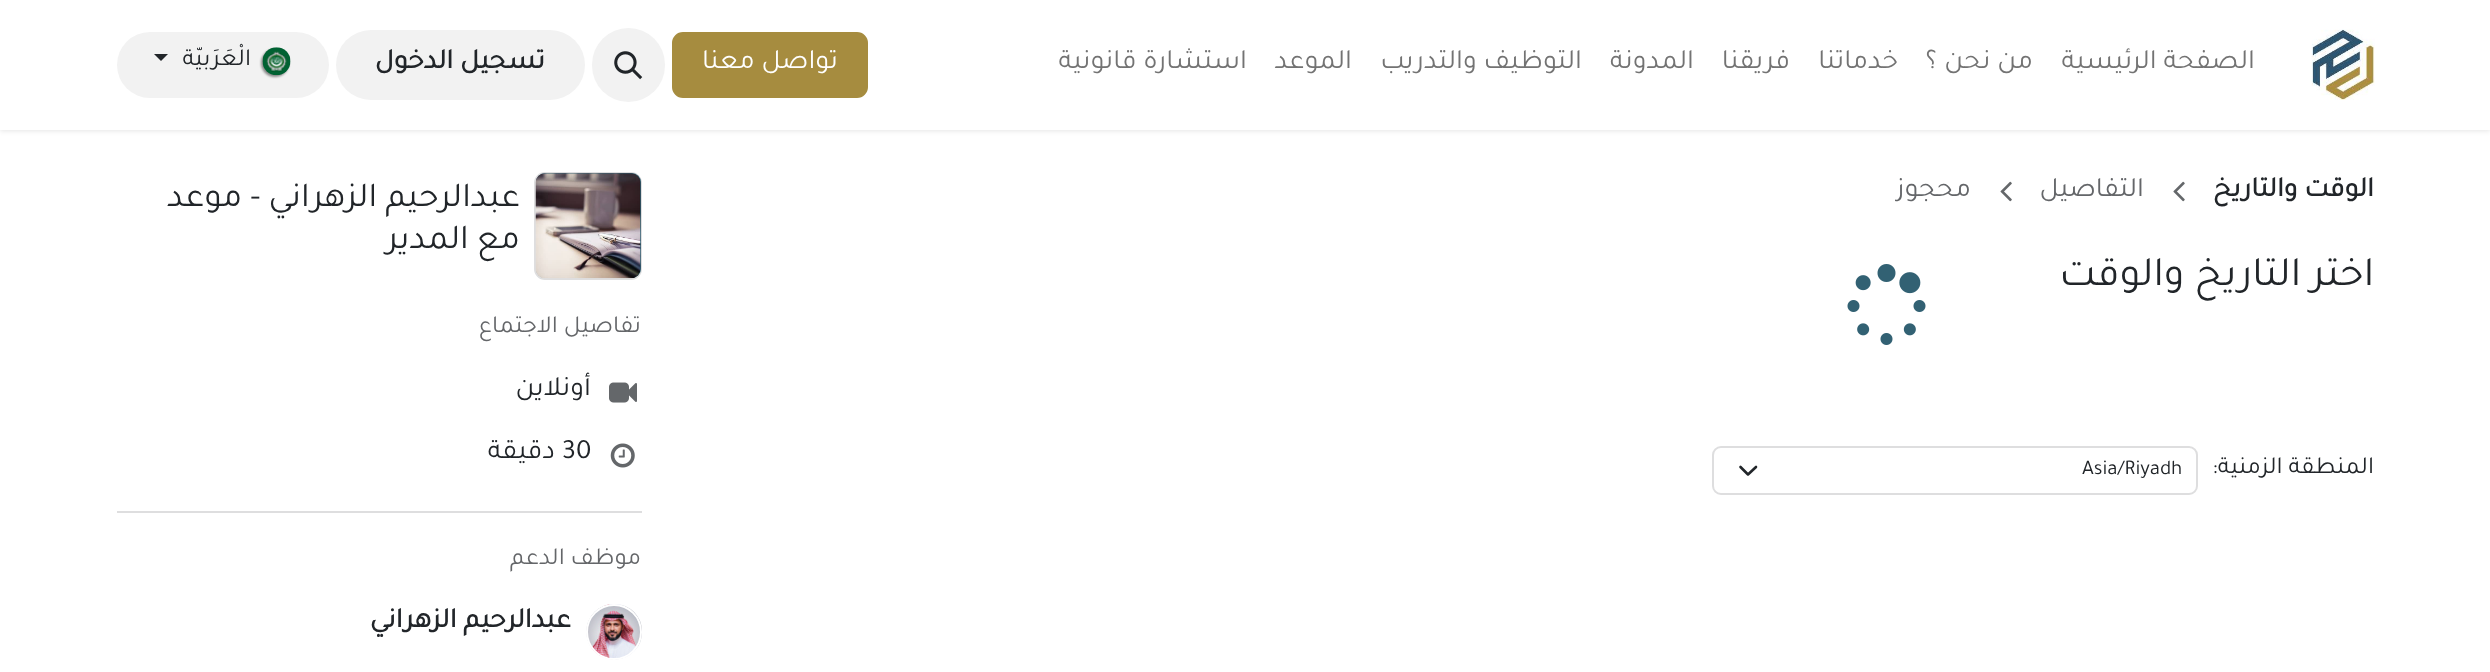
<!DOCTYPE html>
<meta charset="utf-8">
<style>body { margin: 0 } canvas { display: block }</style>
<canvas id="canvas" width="2490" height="672"></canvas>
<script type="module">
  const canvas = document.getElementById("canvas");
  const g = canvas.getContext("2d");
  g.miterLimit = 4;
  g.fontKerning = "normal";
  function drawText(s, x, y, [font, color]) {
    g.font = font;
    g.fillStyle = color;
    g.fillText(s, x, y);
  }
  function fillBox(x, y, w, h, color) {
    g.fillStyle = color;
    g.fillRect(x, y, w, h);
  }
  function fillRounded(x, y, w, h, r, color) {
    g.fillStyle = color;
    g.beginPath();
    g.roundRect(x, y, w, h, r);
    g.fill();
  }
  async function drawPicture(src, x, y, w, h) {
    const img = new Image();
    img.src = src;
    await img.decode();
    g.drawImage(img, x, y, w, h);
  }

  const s1 = ["28px Tajawal", "#737373"];
  const s2 = ["28px Tajawal", "#FFFFFF"];
  const s3 = ["bold 28px Tajawal", "#212529"];
  const s4 = ["24.5px Tajawal", "#212529"];
  const s5 = ["28px Tajawal", "#646669"];
  const s6 = ["42px Tajawal", "#212529"];
  const s7 = ["21px Tajawal", "#212529"];
  const s8 = ["35px Tajawal", "#212529"];
  const s9 = ["24.5px Tajawal", "#646669"];
  const s10 = ["28px Tajawal", "#212529"];

  fillBox(0, 0, 2490, 672, "#FFFFFF");
  g.fillStyle = "rgba(0, 0, 0, 0.1)";
  g.filter = "blur(2.5px)";
  g.beginPath();
  g.rect(0, 2, 2490, 129);
  g.fill();
  g.filter = "none";
  fillBox(0, 0, 2490, 130, "#FFFFFF");
  await drawPicture("pic1.png", 2311, 29, 64, 71);
  g.direction = "rtl";
  drawText("الصفحة الرئيسية", 2255, 68, s1);
  drawText("من نحن ؟", 2033, 68, s1);
  drawText("خدماتنا", 1898, 68, s1);
  drawText("فريقنا", 1790, 68, s1);
  drawText("المدونة", 1694, 68, s1);
  drawText("التوظيف والتدريب", 1582, 68, s1);
  drawText("الموعد", 1352, 68, s1);
  drawText("استشارة قانونية", 1247, 68, s1);
  g.fillStyle = "#A68C3F";
  g.beginPath();
  g.roundRect(673, 33, 194, 64, 10);
  g.fill();
  g.strokeStyle = "#A68C3F";
  g.lineWidth = 2;
  g.stroke();
  drawText("تواصل معنا", 838, 68, s2);
  fillRounded(592, 28, 73, 74, 36.5, "#F2F2F2");
  await drawPicture("pic2.png", 614, 51, 29, 29);
  fillRounded(336, 30, 249, 70, 35, "#F2F2F2");
  drawText("تسجيل الدخول", 545, 68, s3);
  fillRounded(117, 32, 212, 66, 33, "#F2F2F2");
  g.fillStyle = "rgba(0, 0, 0, 0.43)";
  g.filter = "blur(1px)";
  g.beginPath();
  g.roundRect(261, 49, 28, 28, 14);
  g.fill();
  g.filter = "none";
  drawText("الْعَرَبيّة", 251, 65, s4);
  await drawPicture("pic3.png", 262, 47, 29, 29);
  g.beginPath();
  g.moveTo(154, 54);
  g.lineTo(168, 54);
  g.lineTo(161, 61);
  g.closePath();
  g.fill();
  drawText("الوقت والتاريخ", 2374, 196, s3);
  await drawPicture("pic4.png", 2173, 181, 12, 21);
  drawText("التفاصيل", 2144, 196, s5);
  await drawPicture("pic5.png", 2000, 181, 12, 21);
  g.save();
  g.beginPath();
  g.rect(1895, 172, 76, 42);
  g.clip();
  drawText("محجوز", 1971, 196, s5);
  g.restore();
  drawText("اختر التاريخ والوقت", 2374, 285, s6);
  await drawPicture("pic6.png", 1847, 264, 79, 81);
  drawText("المنطقة الزمنية:", 2374, 473, s4);
  g.beginPath();
  g.moveTo(1740.5, 467);
  g.lineTo(1748, 474.5);
  g.lineTo(1756, 467);
  g.strokeStyle = "#212529";
  g.lineWidth = 2.6;
  g.lineCap = "round";
  g.lineJoin = "round";
  g.stroke();
  g.beginPath();
  g.roundRect(1713, 447, 484, 47, 8);
  g.strokeStyle = "#DEDEDF";
  g.lineWidth = 2;
  g.lineJoin = "miter";
  g.stroke();
  g.direction = "ltr";
  drawText("Asia/Riyadh", 2082, 474, s7);
  g.beginPath();
  g.roundRect(535, 173, 106, 106, 10);
  g.stroke();
  fillRounded(536, 173, 105, 105, 9, "#326173");
  await drawPicture("pic7.png", 535, 173, 106, 106);
  g.direction = "rtl";
  drawText("عبدالرحيم الزهراني - موعد", 520, 206, s8);
  drawText("مع المدير", 520, 248, s8);
  drawText("تفاصيل الاجتماع", 641, 332, s9);
  await drawPicture("pic8.png", 609, 382, 28, 21);
  drawText("أونلاين", 591, 395, s10);
  await drawPicture("pic9.png", 610, 443, 25, 25);
  g.direction = "ltr";
  drawText("30", 562, 458, s10);
  g.direction = "rtl";
  drawText("دقيقة", 555, 458, s10);
  fillBox(117, 511, 525, 2, "#DEDEDF");
  drawText("موظف الدعم", 641, 564, s9);
  await drawPicture("pic10.png", 586, 604, 56, 56);
  g.beginPath();
  g.arc(614, 632, 27, 0, Math.PI * 2);
  g.strokeStyle = "#FFFFFF";
  g.stroke();
  drawText("عبدالرحيم الزهراني", 571, 627, s3);
</script>
